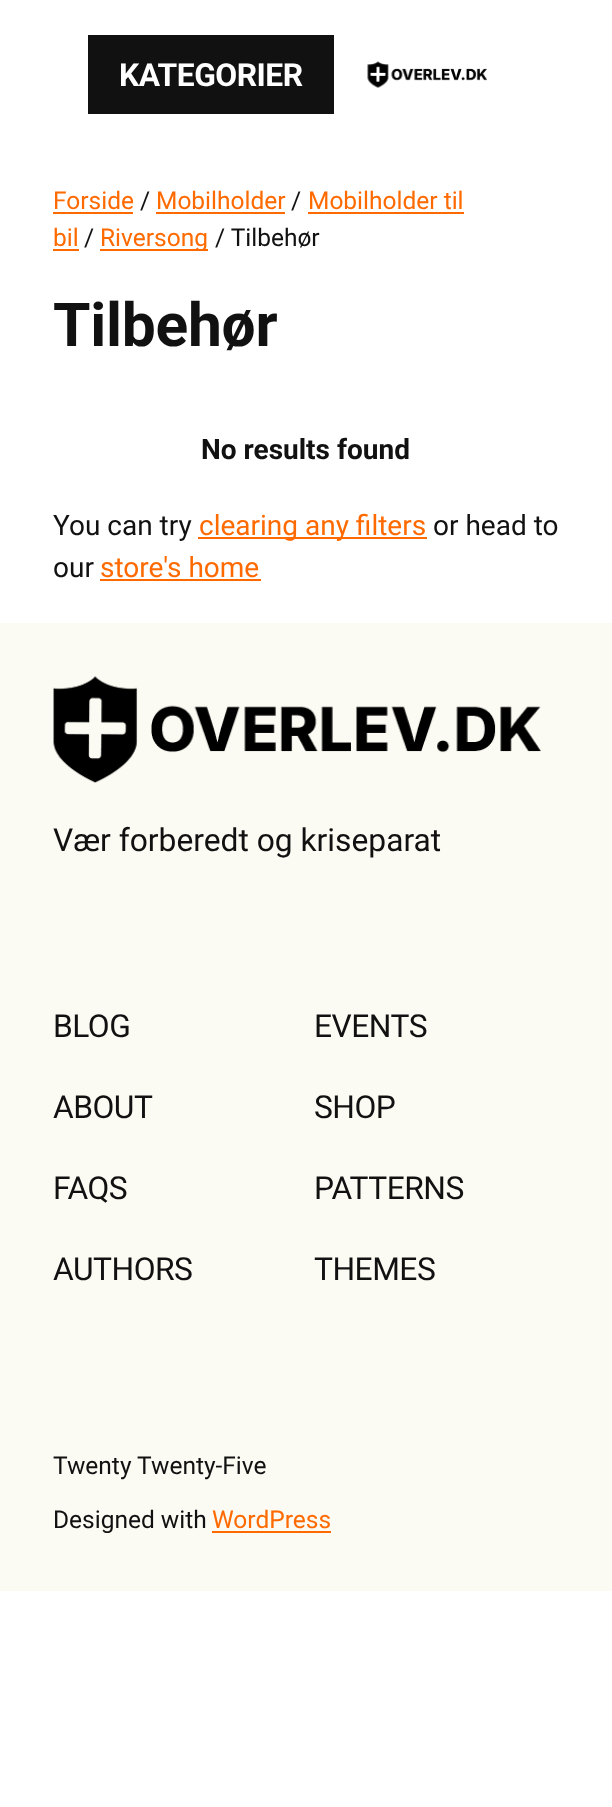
<!DOCTYPE html>
<meta charset="utf-8">
<style>body { margin: 0 } canvas { display: block }</style>
<canvas id="canvas" width="612" height="1807"></canvas>
<script type="module">
  const canvas = document.getElementById("canvas");
  const g = canvas.getContext("2d");
  g.miterLimit = 4;
  g.fontKerning = "normal";
  function drawText(s, x, y, [font, color]) {
    g.font = font;
    g.fillStyle = color;
    g.fillText(s, x, y);
  }
  function fillBox(x, y, w, h, color) {
    g.fillStyle = color;
    g.fillRect(x, y, w, h);
  }
  async function drawPicture(src, x, y, w, h) {
    const img = new Image();
    img.src = src;
    await img.decode();
    g.drawImage(img, x, y, w, h);
  }

  const s1 = ["bold 31.75px Roboto", "#FFFFFF"];
  const s2 = ["24.5px Roboto", "#FF6A00"];
  const s3 = ["24.5px Roboto", "#111111"];
  const s4 = ["bold 60.5px Roboto", "#111111"];
  const s5 = ["bold 28px Roboto", "#111111"];
  const s6 = ["28px Roboto", "#111111"];
  const s7 = ["28px Roboto", "#FF6A00"];
  const s8 = ["31.75px Roboto", "#111111"];

  fillBox(0, 0, 612, 1807, "#FFFFFF");
  fillBox(88, 35, 246, 79, "#111111");
  g.letterSpacing = "-0.5px";
  drawText("KATEGORIER", 119, 86, s1);
  await drawPicture("pic1.png", 367, 61, 120, 27);
  g.letterSpacing = "0px";
  drawText("Forside", 53, 209, s2);
  fillBox(53, 212, 80, 2, "#FF6A00");
  drawText("/", 140, 209, s3);
  drawText("Mobilholder", 156, 209, s2);
  fillBox(156, 212, 129, 2, "#FF6A00");
  drawText("/", 291, 209, s3);
  drawText("Mobilholder til", 308, 209, s2);
  fillBox(308, 212, 156, 2, "#FF6A00");
  drawText("bil", 53, 246, s2);
  fillBox(53, 249, 26, 2, "#FF6A00");
  drawText("/", 84, 246, s3);
  fillBox(100, 249, 108, 2, "#FF6A00");
  drawText("Riversong", 100, 246, s2);
  drawText("/ Tilbehør", 215, 246, s3);
  g.letterSpacing = "-0.25px";
  drawText("Tilbehør", 53, 346, s4);
  g.letterSpacing = "0px";
  drawText("No results found", 201, 459, s5);
  drawText("You can try", 53, 535, s6);
  fillBox(198, 537, 229, 2, "#FF6A00");
  drawText("clearing any filters", 199, 535, s7);
  drawText("or head to", 433, 535, s6);
  drawText("our", 53, 577, s6);
  drawText("store's home", 100, 577, s7);
  fillBox(100, 579, 161, 2, "#FF6A00");
  fillBox(0, 623, 612, 968, "#FBFAF3");
  await drawPicture("pic2.png", 53, 676, 488, 107);
  drawText("Vær forberedt og kriseparat", 53, 851, s8);
  g.letterSpacing = "-0.5px";
  drawText("BLOG", 53, 1037, s8);
  drawText("ABOUT", 53, 1118, s8);
  drawText("FAQS", 53, 1199, s8);
  drawText("AUTHORS", 53, 1280, s8);
  drawText("EVENTS", 314, 1037, s8);
  drawText("SHOP", 314, 1118, s8);
  drawText("PATTERNS", 314, 1199, s8);
  drawText("THEMES", 314, 1280, s8);
  g.letterSpacing = "0px";
  drawText("Twenty Twenty-Five", 53, 1474, s3);
  drawText("Designed with", 53, 1528, s3);
  drawText("WordPress", 212, 1528, s2);
  fillBox(212, 1531, 119, 2, "#FF6A00");
</script>
